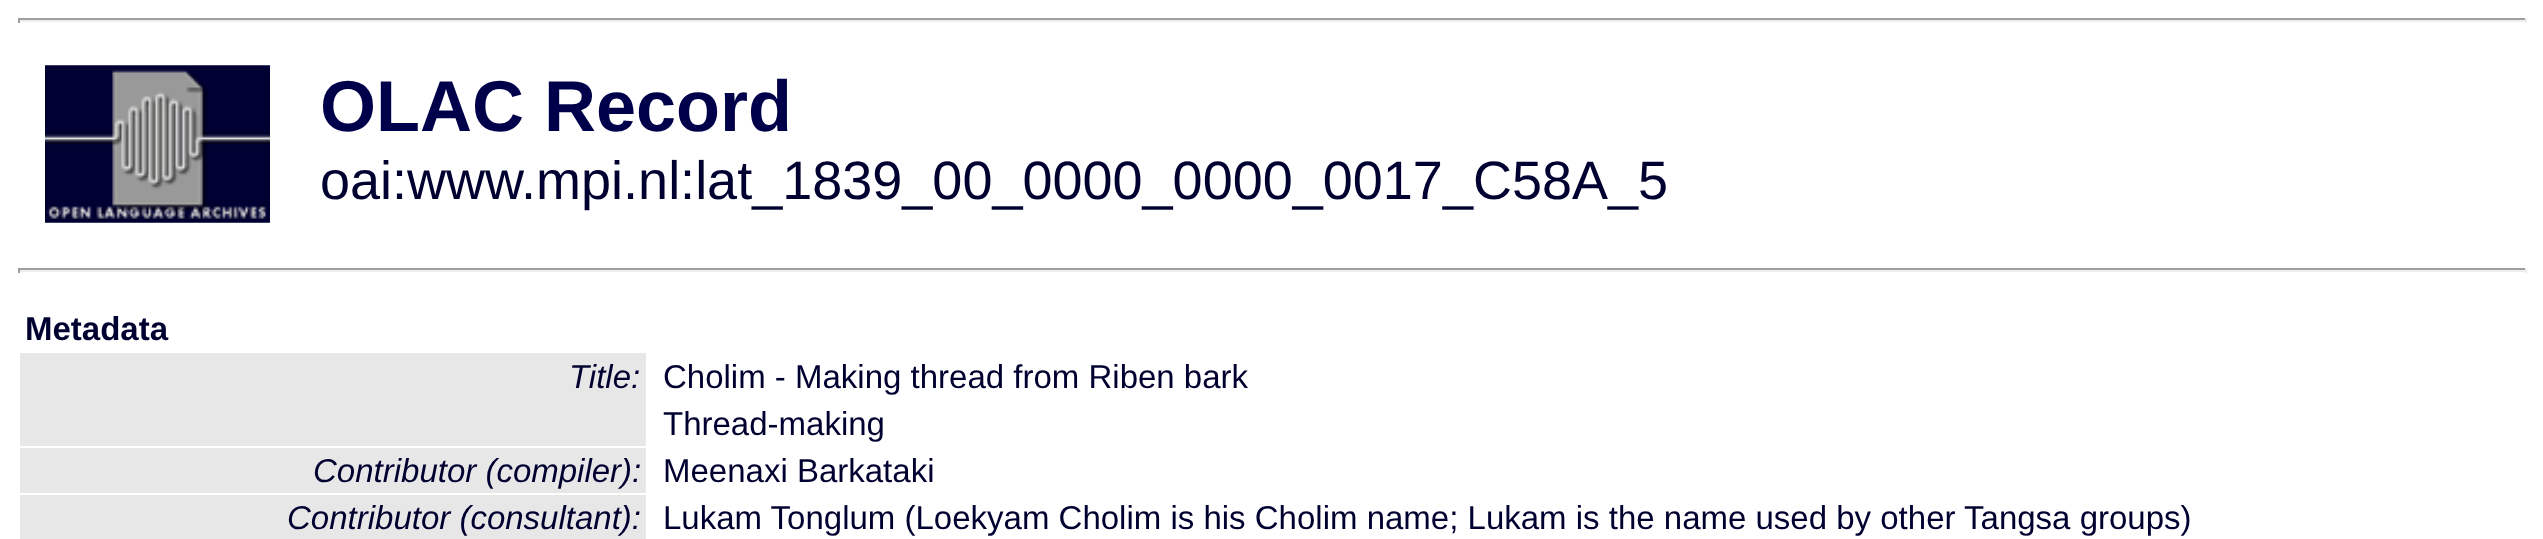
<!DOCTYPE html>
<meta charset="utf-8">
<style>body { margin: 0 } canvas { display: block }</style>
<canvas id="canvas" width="2543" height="539"></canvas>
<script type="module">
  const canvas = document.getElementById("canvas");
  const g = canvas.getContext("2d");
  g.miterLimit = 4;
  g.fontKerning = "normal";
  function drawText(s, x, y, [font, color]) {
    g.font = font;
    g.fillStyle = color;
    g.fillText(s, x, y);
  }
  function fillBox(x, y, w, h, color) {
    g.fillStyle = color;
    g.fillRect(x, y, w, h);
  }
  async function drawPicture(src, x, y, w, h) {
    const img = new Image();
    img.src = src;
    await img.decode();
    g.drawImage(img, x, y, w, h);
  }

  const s1 = ["bold 72px Liberation Sans", "#00004A"];
  const s2 = ["54px Liberation Sans", "#000030"];
  const s3 = ["bold 33px Liberation Sans", "#000030"];
  const s4 = ["italic 33px Liberation Sans", "#000030"];
  const s5 = ["33px Liberation Sans", "#000030"];

  fillBox(0, 0, 2543, 539, "#FFFFFF");
  fillBox(18, 18, 2509, 2, "#9F9F9F");
  fillBox(2525, 18, 2, 5, "#EEEEEE");
  fillBox(18, 20, 2509, 2, "#EEEEEE");
  fillBox(18, 18, 2, 5, "#9F9F9F");
  await drawPicture("pic1.png", 45, 65, 225, 158);
  drawText("OLAC Record", 320, 131, s1);
  drawText("oai:www.mpi.nl:lat_1839_00_0000_0000_0017_C58A_5", 320, 199, s2);
  fillBox(18, 268, 2509, 2, "#9F9F9F");
  fillBox(2525, 268, 2, 5, "#EEEEEE");
  fillBox(18, 270, 2509, 2, "#EEEEEE");
  fillBox(18, 268, 2, 5, "#9F9F9F");
  drawText("Metadata", 25, 340, s3);
  fillBox(20, 353, 626, 93, "#E7E7E7");
  drawText("Title:", 569, 388, s4);
  drawText("Cholim - Making thread from Riben bark", 663, 388, s5);
  drawText("Thread-making", 663, 435, s5);
  fillBox(20, 448, 626, 45, "#E7E7E7");
  drawText("Contributor (compiler):", 313, 482, s4);
  drawText("Meenaxi Barkataki", 663, 482, s5);
  fillBox(20, 495, 626, 44, "#E7E7E7");
  drawText("Contributor (consultant):", 287, 529, s4);
  drawText("Lukam Tonglum (Loekyam Cholim is his Cholim name; Lukam is the name used by other Tangsa groups)", 663, 529, s5);
</script>
